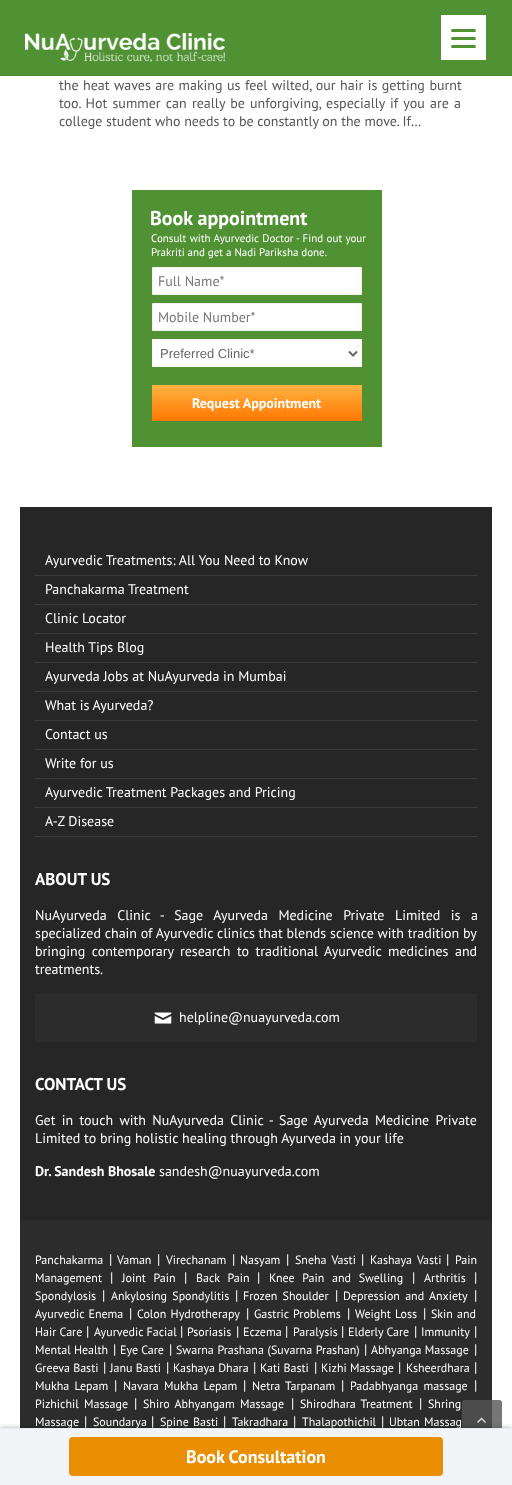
<!DOCTYPE html>
<meta charset="utf-8">
<style>body { margin: 0 } canvas { display: block }</style>
<canvas id="canvas" width="512" height="1485"></canvas>
<script type="module">
  const canvas = document.getElementById("canvas");
  const g = canvas.getContext("2d");
  g.miterLimit = 4;
  g.fontKerning = "normal";
  function drawText(s, x, y, [font, color]) {
    g.font = font;
    g.fillStyle = color;
    g.fillText(s, x, y);
  }
  function fillBox(x, y, w, h, color) {
    g.fillStyle = color;
    g.fillRect(x, y, w, h);
  }
  function fillRounded(x, y, w, h, r, color) {
    g.fillStyle = color;
    g.beginPath();
    g.roundRect(x, y, w, h, r);
    g.fill();
  }
  async function drawPicture(src, x, y, w, h) {
    const img = new Image();
    img.src = src;
    await img.decode();
    g.drawImage(img, x, y, w, h);
  }
  let gradient;

  const s1 = ["14px PT Sans", "#555555"];
  const s2 = ["bold 20px PT Sans", "#FFFFFF"];
  const s3 = ["11px PT Sans", "#FFFFFF"];
  const s4 = ["14px PT Sans", "#777777"];
  const s5 = ["13px Liberation Sans", "#686868"];
  const s6 = ["bold 14px PT Sans", "#FFFFFF"];
  const s7 = ["14px PT Sans", "#FFFFFF"];
  const s8 = ["bold 17px PT Sans", "#FFFFFF"];
  const s9 = ["12px PT Sans", "#FFFFFF"];
  const s10 = ["bold 18px PT Sans", "#FFFFFF"];

  fillBox(0, 0, 512, 1485, "#FFFFFF");
  fillBox(0, 0, 512, 75, "#509233");
  fillBox(441, 15, 45, 45, "#FFFFFF");
  fillRounded(451, 37, 25, 3, 1.5, "#509233");
  fillRounded(451, 29, 25, 3, 1.5, "#509233");
  fillRounded(451, 45, 25, 3, 1.5, "#509233");
  fillBox(0, 75, 512, 1, "#48832E");
  await drawPicture("pic1.png", 25, 33, 200, 29);
  g.wordSpacing = "0.75px";
  drawText("the heat waves are making us feel wilted, our hair is getting burnt", 59, 90, s1);
  g.wordSpacing = "1.5px";
  drawText("too. Hot summer can really be unforgiving, especially if you are a", 59, 108, s1);
  g.wordSpacing = "0px";
  drawText("college student who needs to be constantly on the move. If…", 59, 126, s1);
  fillBox(132, 190, 250, 257, "#509233");
  drawText("Book appointment", 150, 225, s2);
  g.wordSpacing = "0.5px";
  drawText("Consult with Ayurvedic Doctor - Find out your", 151, 242, s3);
  g.wordSpacing = "0px";
  drawText("Prakriti and get a Nadi Pariksha done.", 151, 256, s3);
  g.beginPath();
  g.rect(152.5, 267.5, 209, 27);
  g.fill();
  g.strokeStyle = "#F2F2F2";
  g.stroke();
  drawText("Full Name*", 158, 286, s4);
  g.fillStyle = "#FFFFFF";
  g.beginPath();
  g.rect(152.5, 303.5, 209, 27);
  g.fill();
  g.stroke();
  drawText("Mobile Number*", 158, 322, s4);
  fillBox(152, 339, 210, 28, "#FFFFFF");
  g.beginPath();
  g.moveTo(349, 351.5);
  g.lineTo(353, 355.5);
  g.lineTo(357, 351.5);
  g.strokeStyle = "#686868";
  g.lineWidth = 2;
  g.stroke();
  drawText("Preferred Clinic*", 160, 358, s5);
  gradient = g.createLinearGradient(257, 385, 257, 421);
  gradient.addColorStop(0, "#FFB342");
  gradient.addColorStop(1, "#FF7700");
  g.fillStyle = gradient;
  g.fillRect(152, 385, 210, 36);
  drawText("Request Appointment", 192, 408, s6);
  fillBox(20, 507, 472, 713, "#262626");
  fillBox(35, 575, 442, 1, "#3C3C3C");
  drawText("Ayurvedic Treatments: All You Need to Know", 45, 565, s7);
  fillBox(35, 604, 442, 1, "#3C3C3C");
  drawText("Panchakarma Treatment", 45, 594, s7);
  fillBox(35, 633, 442, 1, "#3C3C3C");
  drawText("Clinic Locator", 45, 623, s7);
  fillBox(35, 662, 442, 1, "#3C3C3C");
  drawText("Health Tips Blog", 45, 652, s7);
  fillBox(35, 691, 442, 1, "#3C3C3C");
  drawText("Ayurveda Jobs at NuAyurveda in Mumbai", 45, 681, s7);
  fillBox(35, 720, 442, 1, "#3C3C3C");
  drawText("What is Ayurveda?", 45, 710, s7);
  fillBox(35, 749, 442, 1, "#3C3C3C");
  drawText("Contact us", 45, 739, s7);
  fillBox(35, 778, 442, 1, "#3C3C3C");
  drawText("Write for us", 45, 768, s7);
  fillBox(35, 807, 442, 1, "#3C3C3C");
  drawText("Ayurvedic Treatment Packages and Pricing", 45, 797, s7);
  fillBox(35, 836, 442, 1, "#3C3C3C");
  drawText("A-Z Disease", 45, 826, s7);
  drawText("ABOUT US", 35, 885, s8);
  g.wordSpacing = "6.75px";
  drawText("NuAyurveda Clinic - Sage Ayurveda Medicine Private Limited is a", 35, 920, s7);
  g.wordSpacing = "0px";
  drawText("specialized chain of Ayurvedic clinics that blends science with tradition by", 35, 938, s7);
  g.wordSpacing = "2.75px";
  drawText("bringing contemporary research to traditional Ayurvedic medicines and", 35, 956, s7);
  g.wordSpacing = "0px";
  drawText("treatments.", 35, 974, s7);
  fillBox(35, 993, 442, 49, "#2C2C2C");
  await drawPicture("pic2.png", 154, 1012, 18, 12);
  drawText("helpline@nuayurveda.com", 179, 1022, s7);
  drawText("CONTACT US", 35, 1090, s8);
  g.wordSpacing = "2.6px";
  drawText("Get in touch with NuAyurveda Clinic - Sage Ayurveda Medicine Private", 35, 1125, s7);
  g.wordSpacing = "0px";
  drawText("Limited to bring holistic healing through Ayurveda in your life", 35, 1143, s7);
  drawText("Dr. Sandesh Bhosale", 35, 1176, s6);
  drawText("sandesh@nuayurveda.com", 159, 1176, s7);
  fillBox(20, 1220, 472, 208, "#2C2C2C");
  drawText("Panchakarma", 35, 1264, s9);
  drawText("|", 109, 1264, s7);
  drawText("Vaman", 117, 1264, s9);
  drawText("|", 157, 1264, s7);
  drawText("Virechanam", 166, 1264, s9);
  drawText("|", 232, 1264, s7);
  drawText("Nasyam", 240, 1264, s9);
  drawText("|", 286, 1264, s7);
  g.wordSpacing = "2px";
  drawText("Sneha Vasti", 295, 1264, s9);
  g.wordSpacing = "0px";
  drawText("|", 361, 1264, s7);
  g.wordSpacing = "2px";
  drawText("Kashaya Vasti", 370, 1264, s9);
  g.wordSpacing = "0px";
  drawText("|", 446, 1264, s7);
  drawText("Pain", 455, 1264, s9);
  drawText("Management", 35, 1282, s9);
  drawText("|", 110, 1282, s7);
  g.wordSpacing = "4.5px";
  drawText("Joint Pain", 122, 1282, s9);
  g.wordSpacing = "0px";
  drawText("|", 184, 1282, s7);
  g.wordSpacing = "4.5px";
  drawText("Back Pain", 196, 1282, s9);
  g.wordSpacing = "0px";
  drawText("|", 257, 1282, s7);
  g.wordSpacing = "4.5px";
  drawText("Knee Pain and Swelling", 269, 1282, s9);
  g.wordSpacing = "0px";
  drawText("|", 412, 1282, s7);
  drawText("Arthritis", 424, 1282, s9);
  drawText("|", 474, 1282, s7);
  drawText("Spondylosis", 35, 1300, s9);
  drawText("|", 102, 1300, s7);
  g.wordSpacing = "2px";
  drawText("Ankylosing Spondylitis", 111, 1300, s9);
  g.wordSpacing = "0px";
  drawText("|", 235, 1300, s7);
  g.wordSpacing = "2px";
  drawText("Frozen Shoulder", 243, 1300, s9);
  g.wordSpacing = "0px";
  drawText("|", 335, 1300, s7);
  g.wordSpacing = "2px";
  drawText("Depression and Anxiety", 343, 1300, s9);
  g.wordSpacing = "0px";
  drawText("|", 474, 1300, s7);
  g.wordSpacing = "1px";
  drawText("Ayurvedic Enema", 35, 1318, s9);
  g.wordSpacing = "0px";
  drawText("|", 129, 1318, s7);
  g.wordSpacing = "1px";
  drawText("Colon Hydrotherapy", 137, 1318, s9);
  g.wordSpacing = "0px";
  drawText("|", 246, 1318, s7);
  g.wordSpacing = "1px";
  drawText("Gastric Problems", 254, 1318, s9);
  g.wordSpacing = "0px";
  drawText("|", 347, 1318, s7);
  g.wordSpacing = "1px";
  drawText("Weight Loss", 355, 1318, s9);
  g.wordSpacing = "0px";
  drawText("|", 423, 1318, s7);
  g.wordSpacing = "1px";
  drawText("Skin and", 431, 1318, s9);
  g.wordSpacing = "0px";
  drawText("Hair Care", 35, 1336, s9);
  drawText("|", 86, 1336, s7);
  drawText("Ayurvedic Facial", 94, 1336, s9);
  drawText("|", 180, 1336, s7);
  drawText("Psoriasis", 187, 1336, s9);
  drawText("|", 236, 1336, s7);
  drawText("Eczema", 243, 1336, s9);
  drawText("|", 285, 1336, s7);
  drawText("Paralysis", 293, 1336, s9);
  drawText("|", 341, 1336, s7);
  drawText("Elderly Care", 348, 1336, s9);
  drawText("|", 414, 1336, s7);
  drawText("Immunity", 421, 1336, s9);
  drawText("|", 474, 1336, s7);
  drawText("Mental Health", 35, 1354, s9);
  drawText("|", 113, 1354, s7);
  drawText("Eye Care", 120, 1354, s9);
  drawText("|", 169, 1354, s7);
  g.wordSpacing = "0.5px";
  drawText("Swarna Prashana (Suvarna Prashan)", 176, 1354, s9);
  g.wordSpacing = "0px";
  drawText("|", 364, 1354, s7);
  drawText("Abhyanga Massage", 371, 1354, s9);
  drawText("|", 474, 1354, s7);
  drawText("Greeva Basti", 35, 1372, s9);
  drawText("|", 103, 1372, s7);
  drawText("Janu Basti", 110, 1372, s9);
  drawText("|", 166, 1372, s7);
  drawText("Kashaya Dhara", 173, 1372, s9);
  drawText("|", 253, 1372, s7);
  drawText("Kati Basti", 260, 1372, s9);
  drawText("|", 314, 1372, s7);
  drawText("Kizhi Massage", 321, 1372, s9);
  drawText("|", 398, 1372, s7);
  drawText("Ksheerdhara", 406, 1372, s9);
  drawText("|", 474, 1372, s7);
  g.wordSpacing = "2px";
  drawText("Mukha Lepam", 35, 1390, s9);
  g.wordSpacing = "0px";
  drawText("|", 114, 1390, s7);
  g.wordSpacing = "2px";
  drawText("Navara Mukha Lepam", 123, 1390, s9);
  g.wordSpacing = "0px";
  drawText("|", 243, 1390, s7);
  g.wordSpacing = "2px";
  drawText("Netra Tarpanam", 252, 1390, s9);
  g.wordSpacing = "0px";
  drawText("|", 341, 1390, s7);
  g.wordSpacing = "2px";
  drawText("Padabhyanga massage", 350, 1390, s9);
  g.wordSpacing = "0px";
  drawText("|", 474, 1390, s7);
  g.wordSpacing = "2px";
  drawText("Pizhichil Massage", 35, 1408, s9);
  g.wordSpacing = "0px";
  drawText("|", 134, 1408, s7);
  g.wordSpacing = "2px";
  drawText("Shiro Abhyangam Massage", 143, 1408, s9);
  g.wordSpacing = "0px";
  drawText("|", 291, 1408, s7);
  g.wordSpacing = "2px";
  drawText("Shirodhara Treatment", 300, 1408, s9);
  g.wordSpacing = "0px";
  drawText("|", 419, 1408, s7);
  drawText("Shring", 428, 1408, s9);
  drawText("Massage", 35, 1426, s9);
  drawText("|", 84, 1426, s7);
  drawText("Soundarya", 93, 1426, s9);
  drawText("|", 151, 1426, s7);
  g.wordSpacing = "1px";
  drawText("Spine Basti", 160, 1426, s9);
  g.wordSpacing = "0px";
  drawText("|", 223, 1426, s7);
  drawText("Takradhara", 232, 1426, s9);
  drawText("|", 293, 1426, s7);
  drawText("Thalapothichil", 302, 1426, s9);
  drawText("|", 381, 1426, s7);
  g.wordSpacing = "1px";
  drawText("Ubtan Massag", 389, 1426, s9);
  fillRounded(462, 1400, 40, 40, 3, "rgba(85, 85, 85, 0.8)");
  await drawPicture("pic3.png", 477, 1417, 9, 6);
  g.fillStyle = "rgba(0, 0, 0, 0.21)";
  g.filter = "blur(2px)";
  g.beginPath();
  g.rect(0, 1427, 512, 57);
  g.fill();
  g.filter = "none";
  fillBox(0, 1429, 512, 56, "#F3F4F8");
  fillBox(0, 1428, 512, 1, "#EAEBF0");
  fillRounded(69, 1437, 374, 39, 4, "#EA8E04");
  g.wordSpacing = "0px";
  drawText("Book Consultation", 186, 1463, s10);
</script>
